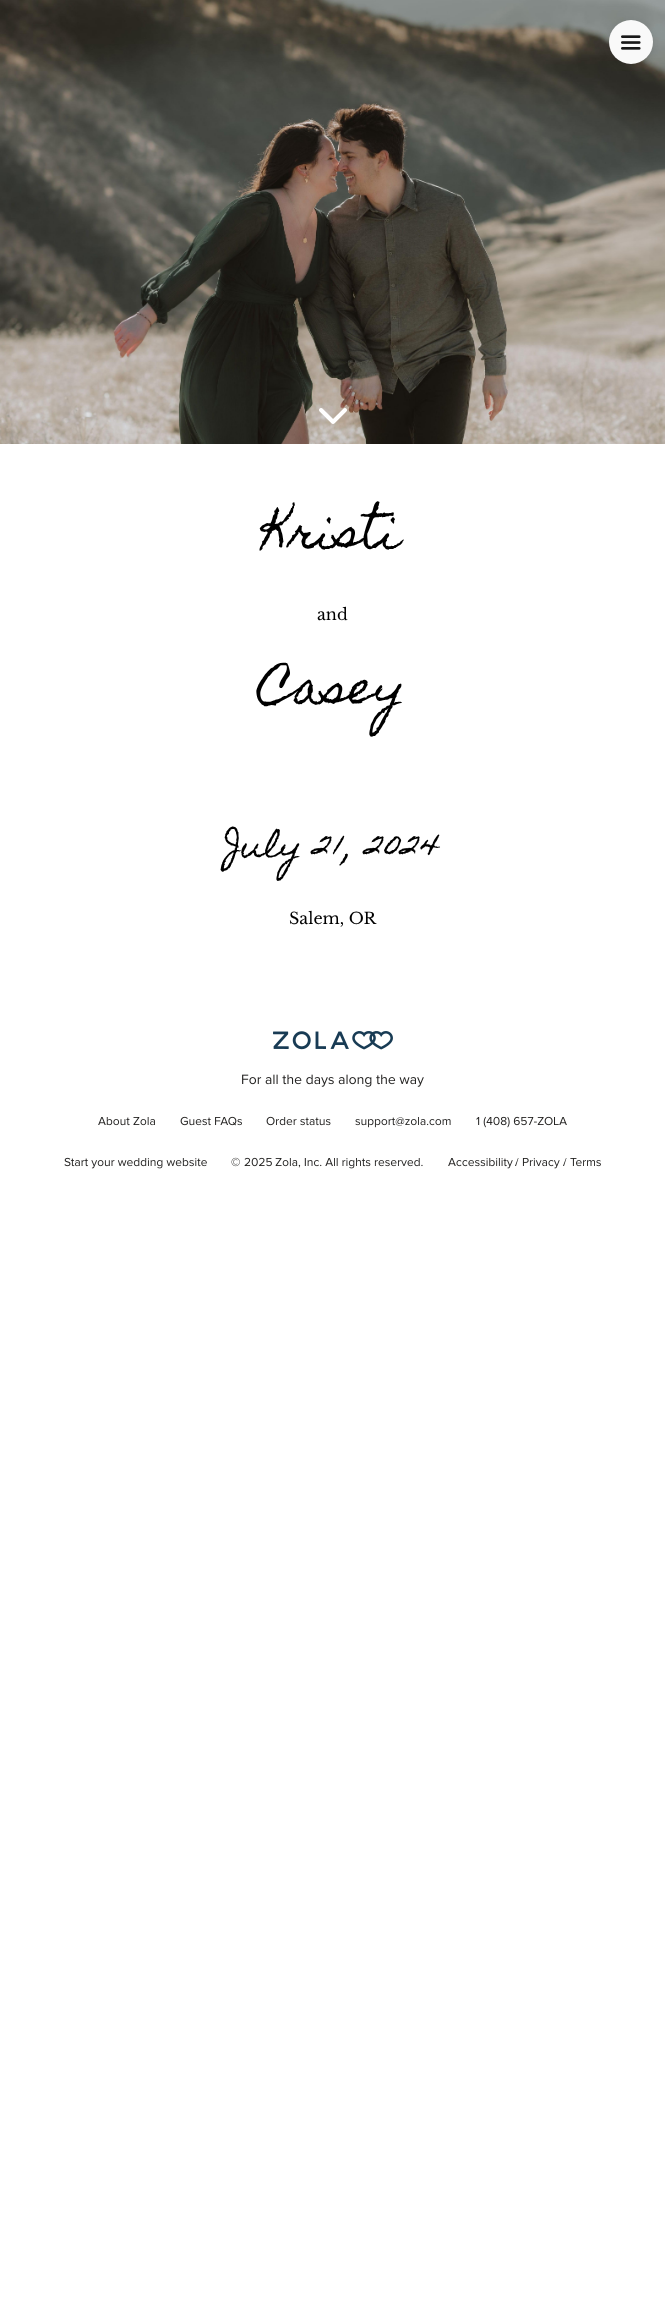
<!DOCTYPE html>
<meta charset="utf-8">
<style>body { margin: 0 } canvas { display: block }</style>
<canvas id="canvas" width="665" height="2302"></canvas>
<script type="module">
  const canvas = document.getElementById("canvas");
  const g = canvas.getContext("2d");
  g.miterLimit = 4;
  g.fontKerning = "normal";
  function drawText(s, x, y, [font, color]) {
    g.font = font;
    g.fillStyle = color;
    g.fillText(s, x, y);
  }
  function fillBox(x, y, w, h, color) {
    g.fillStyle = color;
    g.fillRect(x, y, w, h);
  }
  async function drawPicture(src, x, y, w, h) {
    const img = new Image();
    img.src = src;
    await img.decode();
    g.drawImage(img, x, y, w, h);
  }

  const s1 = ["45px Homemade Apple", "#000000"];
  const s2 = ["16px Libre Baskerville", "#000000"];
  const s3 = ["32px Homemade Apple", "#000000"];

  fillBox(0, 0, 665, 2302, "#FFFFFF");
  await drawPicture("pic2.png", 0, 0, 665, 444);
  g.fillStyle = "rgba(0, 0, 0, 0.1)";
  g.filter = "blur(3px)";
  g.beginPath();
  g.roundRect(609, 22, 44, 44, 22);
  g.fill();
  g.filter = "none";
  g.fillStyle = "#F9F9F9";
  g.beginPath();
  g.arc(631, 42, 22, 0, Math.PI * 2);
  g.fill();
  await drawPicture("pic1.png", 621, 35, 20, 15);
  await drawPicture("pic3.png", 319, 408, 28, 16);
  drawText("Kristi", 264, 547, s1);
  drawText("and", 317, 620, s2);
  drawText("Casey", 259, 703, s1);
  drawText("July 21, 2024", 225, 857, s3);
  drawText("Salem, OR", 289, 924, s2);
  await drawPicture("pic4.png", 273, 1031, 120, 19);
  await drawPicture("pic5.png", 242, 1074, 182, 13);
  await drawPicture("pic6.png", 98, 1117, 57, 9);
  await drawPicture("pic7.png", 180, 1116, 62, 10);
  await drawPicture("pic8.png", 266, 1116, 65, 10);
  await drawPicture("pic9.png", 355, 1117, 96, 11);
  await drawPicture("pic10.png", 476, 1116, 91, 12);
  await drawPicture("pic11.png", 64, 1157, 143, 12);
  await drawPicture("pic12.png", 231, 1157, 9, 10);
  await drawPicture("pic13.png", 244, 1157, 28, 10);
  await drawPicture("pic14.png", 275, 1158, 148, 11);
  await drawPicture("pic15.png", 448, 1158, 65, 11);
  g.fillStyle = "#21201F";
  g.beginPath();
  g.moveTo(516, 1166);
  g.lineTo(518.5, 1158);
  g.lineTo(518, 1158);
  g.lineTo(515, 1166);
  g.closePath();
  g.fill();
  await drawPicture("pic16.png", 522, 1158, 38, 11);
  g.beginPath();
  g.moveTo(564, 1166);
  g.lineTo(566.5, 1158);
  g.lineTo(566, 1158);
  g.lineTo(563, 1166);
  g.closePath();
  g.fill();
  await drawPicture("pic17.png", 570, 1158, 31, 9);
</script>
